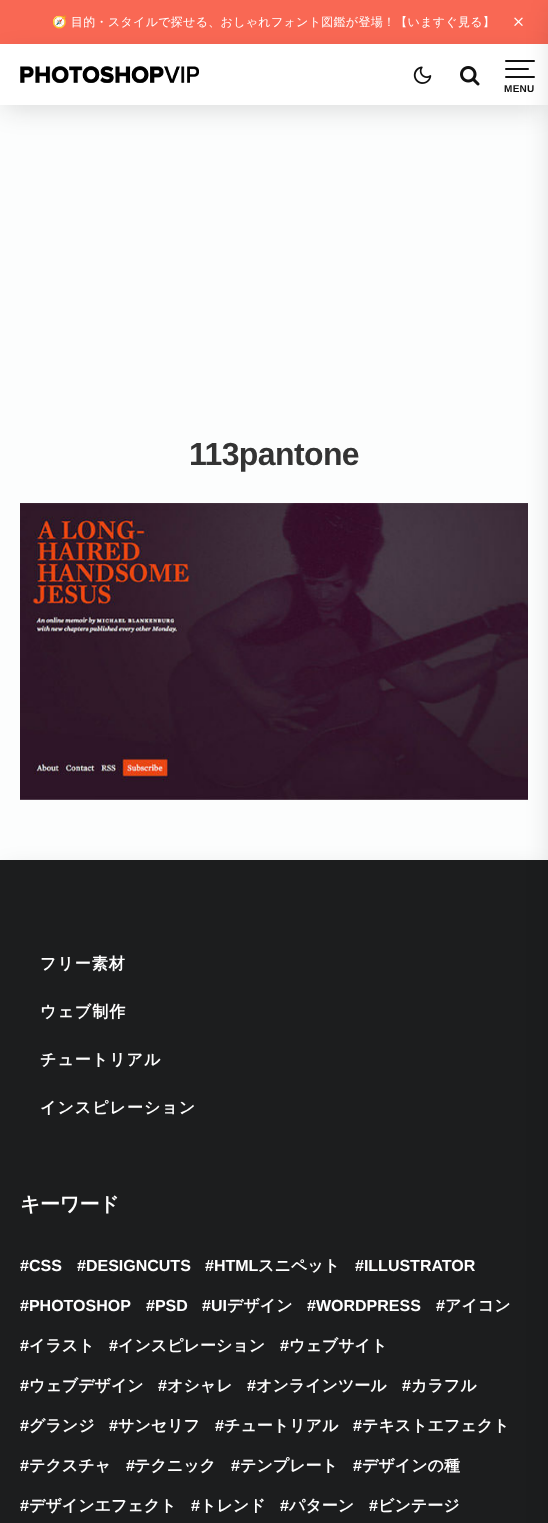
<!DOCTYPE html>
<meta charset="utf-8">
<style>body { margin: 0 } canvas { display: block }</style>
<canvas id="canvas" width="548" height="1523"></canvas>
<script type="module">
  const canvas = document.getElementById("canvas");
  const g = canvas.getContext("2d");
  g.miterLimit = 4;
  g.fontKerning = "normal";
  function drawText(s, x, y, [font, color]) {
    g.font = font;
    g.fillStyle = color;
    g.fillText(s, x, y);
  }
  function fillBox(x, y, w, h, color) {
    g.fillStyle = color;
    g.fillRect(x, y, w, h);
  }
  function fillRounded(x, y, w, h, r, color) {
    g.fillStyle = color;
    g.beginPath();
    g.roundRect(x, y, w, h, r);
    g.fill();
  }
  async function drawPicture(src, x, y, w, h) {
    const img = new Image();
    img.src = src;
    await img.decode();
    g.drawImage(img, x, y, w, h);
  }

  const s1 = ["12px Noto Color Emoji", "#FFFFFF"];
  const s2 = ["500 12px WenQuanYi Zen Hei", "#FFFFFF"];
  const s3 = ["bold 10px Liberation Sans", "#111111"];
  const s4 = ["bold 32px Liberation Sans", "#333333"];
  const s5 = ["bold 16px WenQuanYi Zen Hei", "#FFFFFF"];
  const s6 = ["bold 20px WenQuanYi Zen Hei", "#FFFFFF"];
  const s7 = ["bold 16px Liberation Sans", "#FFFFFF"];

  fillBox(0, 0, 548, 1523, "#FCFDFD");
  fillBox(0, 0, 548, 44, "#F96854");
  await drawPicture("pic1.png", 514, 17, 9, 9);
  fillBox(0, 44, 548, 61, "#FFFFFF");
  g.save();
  g.beginPath();
  g.moveTo(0, 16);
  g.lineTo(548, 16);
  g.lineTo(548, 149);
  g.lineTo(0, 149);
  g.closePath();
  g.moveTo(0, 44);
  g.lineTo(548, 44);
  g.lineTo(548, 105);
  g.lineTo(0, 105);
  g.closePath();
  g.clip("evenodd");
  g.fillStyle = "rgba(20, 20, 20, 0.15)";
  g.filter = "blur(13px)";
  g.beginPath();
  g.rect(4, 56, 540, 53);
  g.fill();
  g.filter = "none";
  g.restore();
  fillRounded(505, 68, 24, 2, 1, "#111111");
  fillRounded(505, 60, 30, 2, 1, "#111111");
  fillRounded(505, 76, 30, 2, 1, "#111111");
  await drawPicture("pic5.png", 20, 503, 508, 297);
  g.fillStyle = "rgba(20, 20, 20, 0.15)";
  g.filter = "blur(13px)";
  g.beginPath();
  g.rect(4, 872, 540, 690);
  g.fill();
  g.filter = "none";
  fillBox(0, 860, 548, 663, "#1C1D1E");
  g.fillStyle = "rgba(20, 20, 20, 0.15)";
  g.filter = "blur(13px)";
  g.beginPath();
  g.rect(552, 12, 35, 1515);
  g.fill();
  g.filter = "none";
  g.letterSpacing = "0.3px";
  drawText("🧭", 52, 26, s1);
  drawText("目的・スタイルで探せる、おしゃれフォント図鑑が登場！【いますぐ見る】", 71, 26, s2);
  await drawPicture("pic2.png", 20, 66, 179, 17);
  await drawPicture("pic3.png", 413, 66, 19, 18);
  await drawPicture("pic4.png", 460, 66, 20, 20);
  drawText("MENU", 504, 92, s3);
  g.letterSpacing = "-0.6px";
  drawText("113pantone", 189, 465, s4);
  g.letterSpacing = "1px";
  drawText("フリー素材", 40, 969, s5);
  drawText("ウェブ制作", 40, 1017, s5);
  drawText("チュートリアル", 40, 1065, s5);
  drawText("インスピレーション", 40, 1113, s5);
  g.letterSpacing = "-0.5px";
  drawText("キーワード", 20, 1211, s6);
  g.letterSpacing = "0px";
  drawText("#CSS", 20, 1271, s7);
  drawText("#DESIGNCUTS", 77, 1271, s7);
  drawText("#HTML", 205, 1271, s7);
  drawText("スニペット", 258, 1271, s5);
  drawText("#ILLUSTRATOR", 355, 1271, s7);
  drawText("#PHOTOSHOP", 20, 1311, s7);
  drawText("#PSD", 146, 1311, s7);
  drawText("#UI", 202, 1311, s7);
  drawText("デザイン", 227, 1311, s5);
  drawText("#WORDPRESS", 307, 1311, s7);
  drawText("#", 436, 1311, s7);
  drawText("アイコン", 445, 1311, s5);
  drawText("#", 20, 1351, s7);
  drawText("イラスト", 29, 1351, s5);
  drawText("#", 109, 1351, s7);
  drawText("インスピレーション", 118, 1351, s5);
  drawText("#", 280, 1351, s7);
  drawText("ウェブサイト", 289, 1351, s5);
  drawText("#", 20, 1391, s7);
  drawText("ウェブデザイン", 29, 1391, s5);
  drawText("#", 158, 1391, s7);
  drawText("オシャレ", 167, 1391, s5);
  drawText("#", 247, 1391, s7);
  drawText("オンラインツール", 256, 1391, s5);
  drawText("#", 402, 1391, s7);
  drawText("カラフル", 411, 1391, s5);
  drawText("#", 20, 1431, s7);
  drawText("グランジ", 29, 1431, s5);
  drawText("#", 109, 1431, s7);
  drawText("サンセリフ", 118, 1431, s5);
  drawText("#", 215, 1431, s7);
  drawText("チュートリアル", 224, 1431, s5);
  drawText("#", 353, 1431, s7);
  drawText("テキストエフェクト", 362, 1431, s5);
  drawText("#", 20, 1471, s7);
  drawText("テクスチャ", 29, 1471, s5);
  drawText("#", 126, 1471, s7);
  drawText("テクニック", 134, 1471, s5);
  drawText("#", 231, 1471, s7);
  drawText("テンプレート", 240, 1471, s5);
  drawText("#", 353, 1471, s7);
  drawText("デザインの種", 362, 1471, s5);
  drawText("#", 20, 1511, s7);
  drawText("デザインエフェクト", 29, 1511, s5);
  drawText("#", 191, 1511, s7);
  drawText("トレンド", 200, 1511, s5);
  drawText("#", 280, 1511, s7);
  drawText("パターン", 289, 1511, s5);
  drawText("#", 369, 1511, s7);
  drawText("ビンテージ", 378, 1511, s5);
</script>
